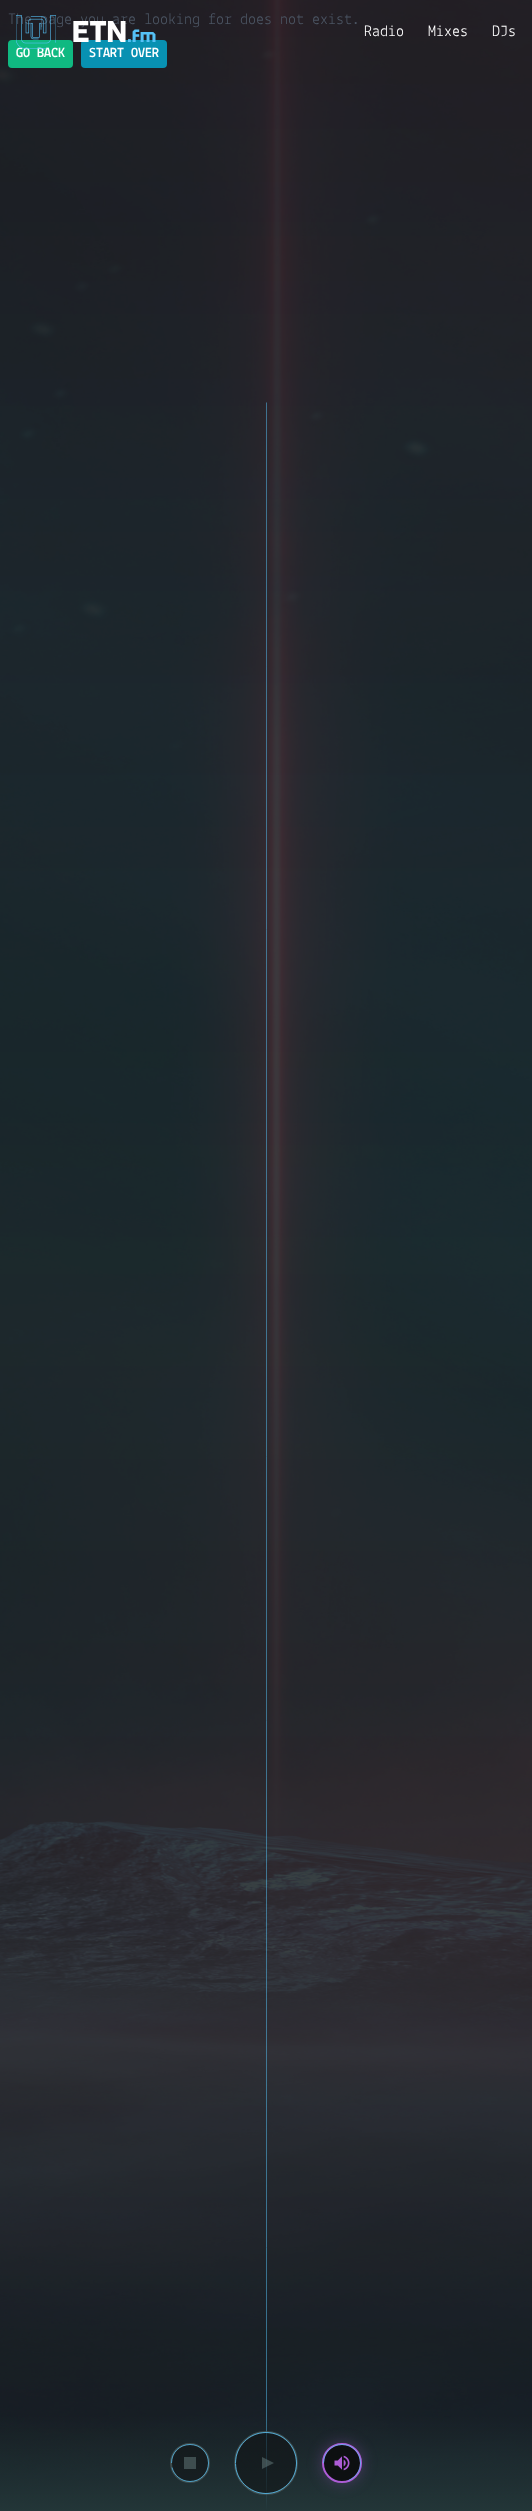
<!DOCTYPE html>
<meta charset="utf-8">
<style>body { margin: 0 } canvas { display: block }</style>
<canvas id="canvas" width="532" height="2511"></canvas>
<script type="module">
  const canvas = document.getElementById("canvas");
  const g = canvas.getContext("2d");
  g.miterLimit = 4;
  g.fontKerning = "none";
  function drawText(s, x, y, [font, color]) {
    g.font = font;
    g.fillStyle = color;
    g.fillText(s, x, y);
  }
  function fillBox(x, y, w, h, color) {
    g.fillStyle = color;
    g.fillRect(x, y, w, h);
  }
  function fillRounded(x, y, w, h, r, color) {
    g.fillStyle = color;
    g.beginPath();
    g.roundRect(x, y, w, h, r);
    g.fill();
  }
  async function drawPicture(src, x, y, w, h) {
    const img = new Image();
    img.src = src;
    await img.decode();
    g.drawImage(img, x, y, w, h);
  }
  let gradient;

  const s1 = ["16px Lekton", "#4B5563"];
  const s2 = ["bold 14px Lekton", "#FFFFFF"];
  const s3 = ["bold 30px Tektur", "#FFFFFF"];
  const s4 = ["bold 18px Tektur", "#55C1F6"];
  const s5 = ["16px Lekton", "#FFFFFF"];

  fillBox(0, 0, 532, 2511, "#FFFFFF");
  await drawPicture("pic1.png", 0, 0, 532, 2510);
  drawText("The page you are looking for does not exist.", 8, 24, s1);
  fillRounded(8, 40, 65, 28, 4, "#10B981");
  drawText("GO BACK", 16, 57, s2);
  fillRounded(81, 40, 86, 28, 4, "#0891B2");
  drawText("START OVER", 89, 57, s2);
  await drawPicture("pic2.png", 16, 15, 40, 34);
  drawText("ETN", 72, 42, s3);
  drawText(".fm", 127, 42, s4);
  drawText("Radio", 364, 36, s5);
  drawText("Mixes", 428, 36, s5);
  drawText("DJs", 492, 36, s5);
  g.save();
  g.beginPath();
  g.rect(266, 0, 1, 2511);
  g.clip();
  g.beginPath();
  g.moveTo(266, 2511);
  g.lineTo(266, 402.5);
  g.strokeStyle = "#55C1F6";
  g.stroke();
  g.restore();
  gradient = g.createLinearGradient(266, 2511, 266, 2415);
  gradient.addColorStop(0, "#233638");
  gradient.addColorStop(1, "rgba(35, 54, 56, 0)");
  g.fillStyle = gradient;
  g.fillRect(0, 2417, 532, 94);
  g.fillStyle = "rgba(13, 16, 17, 0.5)";
  g.beginPath();
  g.arc(190, 2463, 20, 0, Math.PI * 2);
  g.fill();
  g.beginPath();
  g.arc(190, 2463, 19, 0, Math.PI * 2);
  g.strokeStyle = "rgba(103, 126, 126, 0.5)";
  g.lineWidth = 2;
  g.stroke();
  fillBox(184, 2457, 12, 12, "#3E4D4F");
  g.beginPath();
  g.moveTo(171.5, 2463);
  g.bezierCurveTo(171.5, 2452.5, 179.5, 2444.5, 190, 2444.5);
  g.bezierCurveTo(200.5, 2444.5, 208.5, 2452.5, 208.5, 2463);
  g.bezierCurveTo(208.5, 2473.5, 200.5, 2481.5, 190, 2481.5);
  g.bezierCurveTo(181.5, 2481.5, 174, 2475.5, 172, 2467.5);
  g.strokeStyle = "#55C1F6";
  g.lineWidth = 0.7;
  g.stroke();
  g.fillStyle = "rgba(13, 16, 17, 0.5)";
  g.beginPath();
  g.arc(266, 2463, 32, 0, Math.PI * 2);
  g.fill();
  g.beginPath();
  g.arc(266, 2463, 31, 0, Math.PI * 2);
  g.strokeStyle = "rgba(103, 126, 126, 0.5)";
  g.lineWidth = 2;
  g.stroke();
  g.fillStyle = "rgba(103, 126, 126, 0.5)";
  g.beginPath();
  g.moveTo(262, 2457);
  g.lineTo(274, 2463);
  g.lineTo(262, 2469);
  g.closePath();
  g.fill();
  g.beginPath();
  g.moveTo(235.5, 2463);
  g.bezierCurveTo(235.5, 2446, 249, 2432.5, 266, 2432.5);
  g.bezierCurveTo(283, 2432.5, 296.5, 2446, 296.5, 2463);
  g.bezierCurveTo(296.5, 2480, 283, 2493.5, 266, 2493.5);
  g.bezierCurveTo(249.5, 2493.5, 235.5, 2480, 235.5, 2463.5);
  g.strokeStyle = "#55C1F6";
  g.lineWidth = 0.8;
  g.stroke();
  g.fillStyle = "rgba(173, 92, 214, 0.3)";
  g.filter = "blur(7.5px)";
  g.beginPath();
  g.roundRect(322, 2443, 40, 40, 20);
  g.fill();
  g.filter = "none";
  g.fillStyle = "#0D1011";
  g.beginPath();
  g.arc(342, 2463, 19, 0, Math.PI * 2);
  g.fill();
  g.strokeStyle = "#AD5CD6";
  g.lineWidth = 2;
  g.stroke();
  await drawPicture("pic3.png", 334, 2455, 16, 16);
  g.beginPath();
  g.moveTo(323.5, 2463);
  g.bezierCurveTo(323.5, 2452.5, 331.5, 2444.5, 342, 2444.5);
  g.bezierCurveTo(352.5, 2444.5, 360.5, 2452.5, 360.5, 2463);
  g.bezierCurveTo(360.5, 2471, 355.5, 2477.5, 348.5, 2480.5);
  g.strokeStyle = "#55C1F6";
  g.lineWidth = 0.7;
  g.stroke();
</script>
